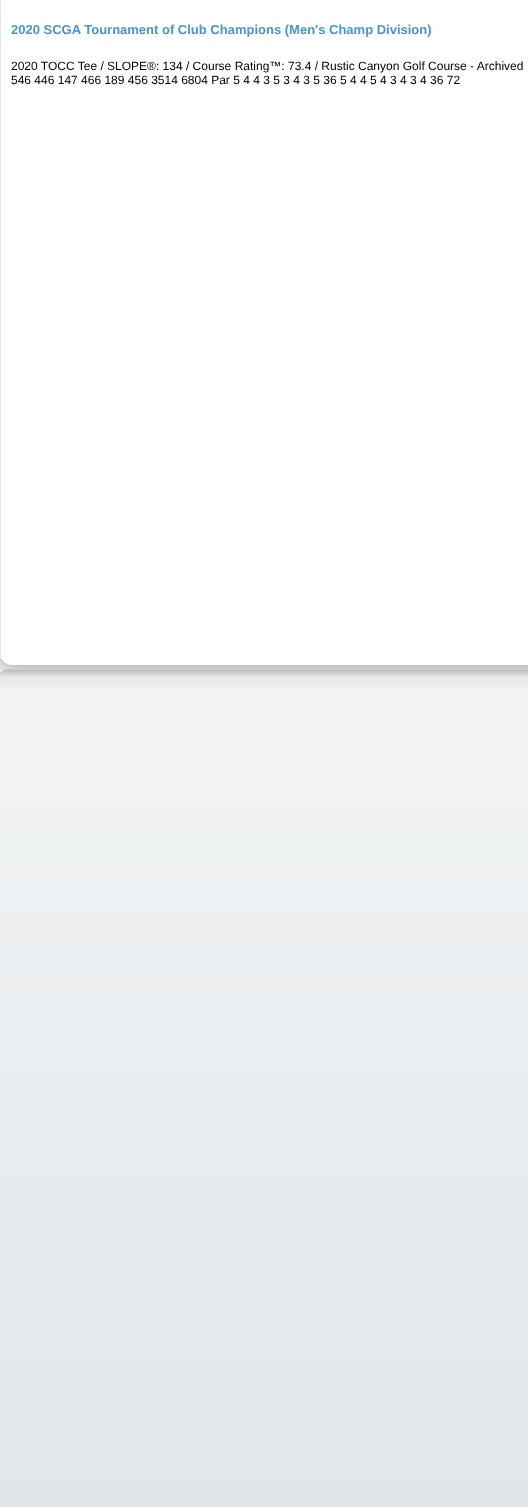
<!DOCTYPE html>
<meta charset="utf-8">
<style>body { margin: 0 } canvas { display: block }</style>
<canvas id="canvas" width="528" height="1507"></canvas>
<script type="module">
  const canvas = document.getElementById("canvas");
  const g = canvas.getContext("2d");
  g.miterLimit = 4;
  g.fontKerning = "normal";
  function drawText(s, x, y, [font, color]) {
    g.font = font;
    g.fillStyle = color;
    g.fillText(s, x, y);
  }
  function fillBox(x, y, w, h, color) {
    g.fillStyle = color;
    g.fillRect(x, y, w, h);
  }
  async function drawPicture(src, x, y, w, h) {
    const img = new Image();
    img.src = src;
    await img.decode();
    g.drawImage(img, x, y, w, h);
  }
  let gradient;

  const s1 = ["bold 13px Liberation Sans", "#4698CB"];
  const s2 = ["12px Liberation Sans", "#000000"];

  fillBox(0, 0, 528, 1507, "#FFFFFF");
  gradient = g.createLinearGradient(264, 0, 264, 1507);
  gradient.addColorStop(0, "#FFFFFF");
  gradient.addColorStop(1, "#E2E6E9");
  g.fillStyle = gradient;
  g.fillRect(0, 657, 528, 850);
  g.fillStyle = "#888888";
  g.filter = "blur(9px)";
  g.beginPath();
  g.roundRect(0, 0, 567, 665, 12);
  g.fill();
  g.filter = "none";
  g.fillStyle = "#FFFFFF";
  g.beginPath();
  g.moveTo(0, 0);
  g.lineTo(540, 0);
  g.lineTo(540, 653);
  g.bezierCurveTo(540, 659.5, 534.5, 665, 528, 665);
  g.lineTo(12, 665);
  g.bezierCurveTo(5.5, 665, 0, 659.5, 0, 653);
  g.closePath();
  g.fill();
  fillBox(0, 0, 1, 659, "#E2E6E9");
  drawText("2020 SCGA Tournament of Club Champions (Men's Champ Division)", 11, 34, s1);
  drawText("2020 TOCC Tee / SLOPE®: 134 / Course Rating™: 73.4 / Rustic Canyon Golf Course - Archived", 11, 70, s2);
  drawText("546 446 147 466 189 456 3514 6804 Par 5 4 4 3 5 3 4 3 5 36 5 4 4 5 4 3 4 3 4 36 72", 11, 84, s2);
  g.fillStyle = "#FFFFFF";
  g.beginPath();
  g.moveTo(1, 647);
  g.lineTo(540, 647);
  g.lineTo(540, 653);
  g.bezierCurveTo(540, 659.5, 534.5, 665, 528, 665);
  g.lineTo(13, 665);
  g.bezierCurveTo(6.5, 665, 1, 659.5, 1, 653);
  g.closePath();
  g.fill();
  await drawPicture("pic1.png", 0, 669, 528, 20);
</script>
